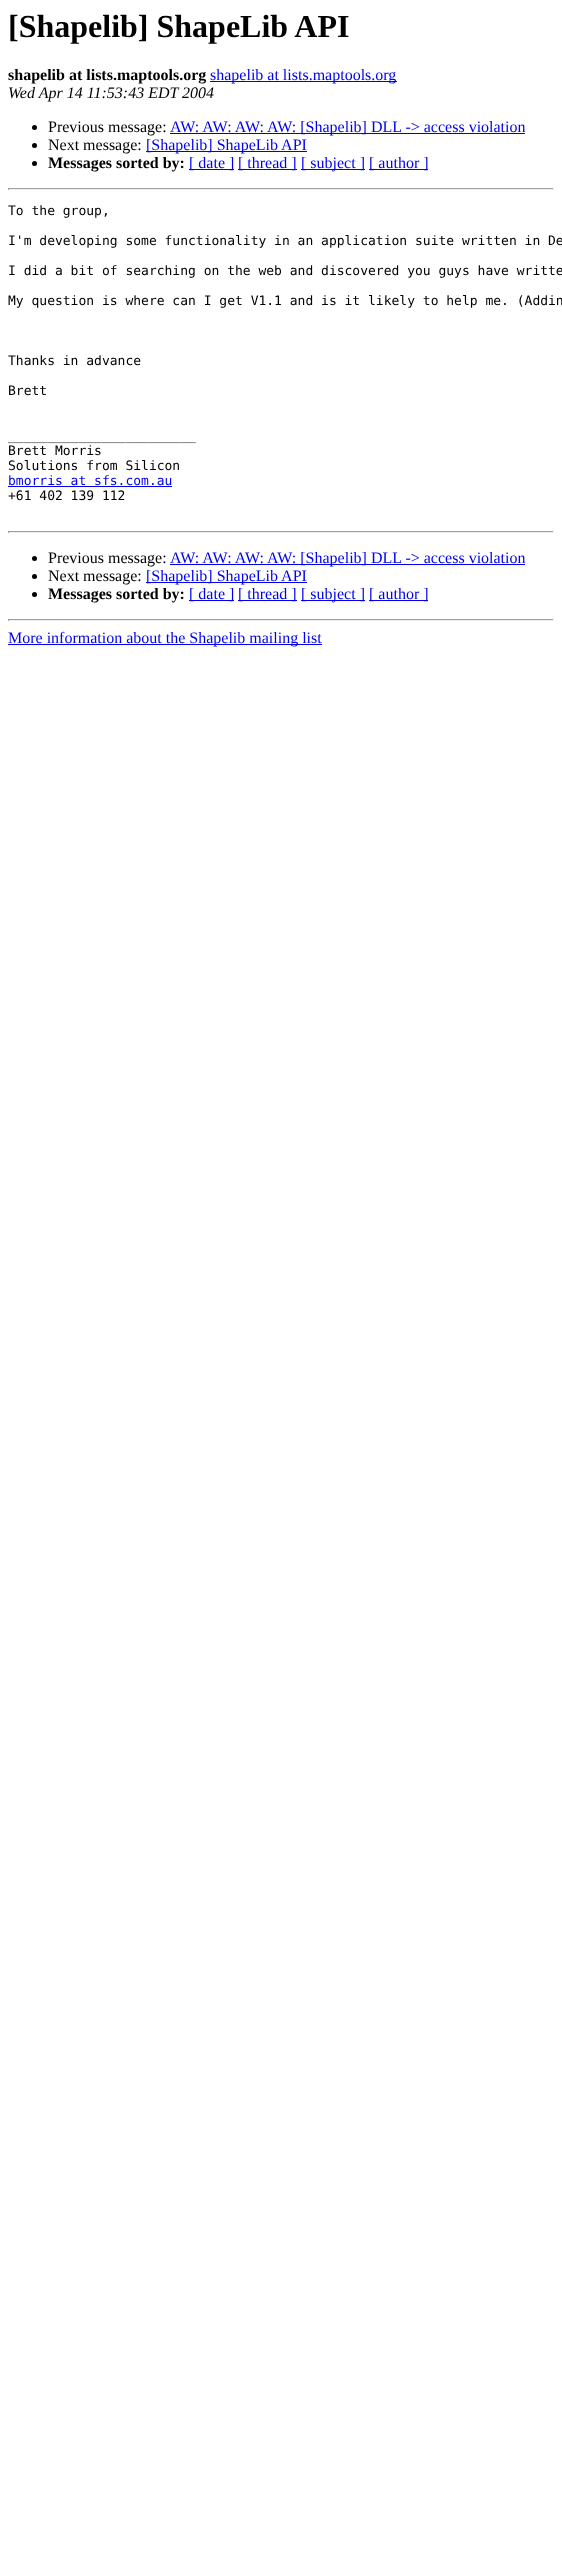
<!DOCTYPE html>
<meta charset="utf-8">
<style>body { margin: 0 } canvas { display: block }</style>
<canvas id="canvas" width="562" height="2556"></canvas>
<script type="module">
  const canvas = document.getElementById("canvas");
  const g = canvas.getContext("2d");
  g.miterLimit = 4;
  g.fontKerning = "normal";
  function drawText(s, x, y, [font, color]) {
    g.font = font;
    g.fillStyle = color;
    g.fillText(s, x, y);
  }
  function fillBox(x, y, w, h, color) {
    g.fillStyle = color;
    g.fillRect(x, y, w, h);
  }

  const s1 = ["bold 32px Liberation Serif", "#000000"];
  const s2 = ["bold 16px Liberation Serif", "#000000"];
  const s3 = ["16px Liberation Serif", "#0000EE"];
  const s4 = ["italic 16px Liberation Serif", "#000000"];
  const s5 = ["16px Liberation Serif", "#000000"];
  const s6 = ["13px DejaVu Sans Mono", "#000000"];
  const s7 = ["13px DejaVu Sans Mono", "#0000EE"];

  fillBox(0, 0, 562, 2556, "#FFFFFF");
  drawText("[Shapelib] ShapeLib API", 8, 37, s1);
  drawText("shapelib at lists.maptools.org", 8, 80, s2);
  fillBox(210, 81, 187, 1, "#0000EE");
  drawText("shapelib at lists.maptools.org", 210, 80, s3);
  drawText("Wed Apr 14 11:53:43 EDT 2004", 8, 98, s4);
  g.beginPath();
  g.arc(34.5, 127.5, 2.5, 0, Math.PI * 2);
  g.fill();
  drawText("Previous message:", 48, 132, s5);
  fillBox(170, 133, 355, 1, "#0000EE");
  drawText("AW: AW: AW: AW: [Shapelib] DLL -> access violation", 170, 132, s3);
  g.fillStyle = "#000000";
  g.beginPath();
  g.arc(34.5, 145.5, 2.5, 0, Math.PI * 2);
  g.fill();
  drawText("Next message:", 48, 150, s5);
  fillBox(146, 151, 161, 1, "#0000EE");
  drawText("[Shapelib] ShapeLib API", 146, 150, s3);
  g.fillStyle = "#000000";
  g.beginPath();
  g.arc(34.5, 163.5, 2.5, 0, Math.PI * 2);
  g.fill();
  drawText("Messages sorted by:", 48, 168, s2);
  fillBox(189, 169, 45, 1, "#0000EE");
  drawText("[ date ]", 189, 168, s3);
  fillBox(238, 169, 59, 1, "#0000EE");
  drawText("[ thread ]", 238, 168, s3);
  fillBox(301, 169, 64, 1, "#0000EE");
  drawText("[ subject ]", 301, 168, s3);
  fillBox(369, 169, 59, 1, "#0000EE");
  drawText("[ author ]", 369, 168, s3);
  fillBox(8, 188, 546, 1, "#9F9F9F");
  fillBox(553, 188, 1, 2, "#EEEEEE");
  fillBox(8, 189, 546, 1, "#EEEEEE");
  fillBox(8, 188, 1, 2, "#9F9F9F");
  drawText("To the group,", 8, 215, s6);
  drawText("I'm developing some functionality in an application suite written in De", 8, 245, s6);
  drawText("I did a bit of searching on the web and discovered you guys have writte", 8, 275, s6);
  drawText("My question is where can I get V1.1 and is it likely to help me. (Addin", 8, 305, s6);
  drawText("Thanks in advance", 8, 365, s6);
  drawText("Brett", 8, 395, s6);
  drawText("________________________", 8, 440, s6);
  drawText("Brett Morris", 8, 455, s6);
  drawText("Solutions from Silicon", 8, 470, s6);
  drawText("bmorris at sfs.com.au", 8, 485, s7);
  fillBox(8, 486, 164, 1, "#0000EE");
  drawText("+61 402 139 112", 8, 500, s6);
  fillBox(8, 531, 546, 1, "#9F9F9F");
  fillBox(553, 531, 1, 2, "#EEEEEE");
  fillBox(8, 532, 546, 1, "#EEEEEE");
  fillBox(8, 531, 1, 2, "#9F9F9F");
  g.fillStyle = "#000000";
  g.beginPath();
  g.arc(34.5, 558.5, 2.5, 0, Math.PI * 2);
  g.fill();
  drawText("Previous message:", 48, 563, s5);
  fillBox(170, 564, 355, 1, "#0000EE");
  drawText("AW: AW: AW: AW: [Shapelib] DLL -> access violation", 170, 563, s3);
  g.fillStyle = "#000000";
  g.beginPath();
  g.arc(34.5, 576.5, 2.5, 0, Math.PI * 2);
  g.fill();
  drawText("Next message:", 48, 581, s5);
  fillBox(146, 582, 161, 1, "#0000EE");
  drawText("[Shapelib] ShapeLib API", 146, 581, s3);
  g.fillStyle = "#000000";
  g.beginPath();
  g.arc(34.5, 594.5, 2.5, 0, Math.PI * 2);
  g.fill();
  drawText("Messages sorted by:", 48, 599, s2);
  fillBox(189, 600, 45, 1, "#0000EE");
  drawText("[ date ]", 189, 599, s3);
  fillBox(238, 600, 59, 1, "#0000EE");
  drawText("[ thread ]", 238, 599, s3);
  fillBox(301, 600, 64, 1, "#0000EE");
  drawText("[ subject ]", 301, 599, s3);
  fillBox(369, 600, 59, 1, "#0000EE");
  drawText("[ author ]", 369, 599, s3);
  fillBox(8, 619, 546, 1, "#9F9F9F");
  fillBox(553, 619, 1, 2, "#EEEEEE");
  fillBox(8, 620, 546, 1, "#EEEEEE");
  fillBox(8, 619, 1, 2, "#9F9F9F");
  fillBox(8, 644, 314, 1, "#0000EE");
  drawText("More information about the Shapelib mailing list", 8, 643, s3);
</script>
